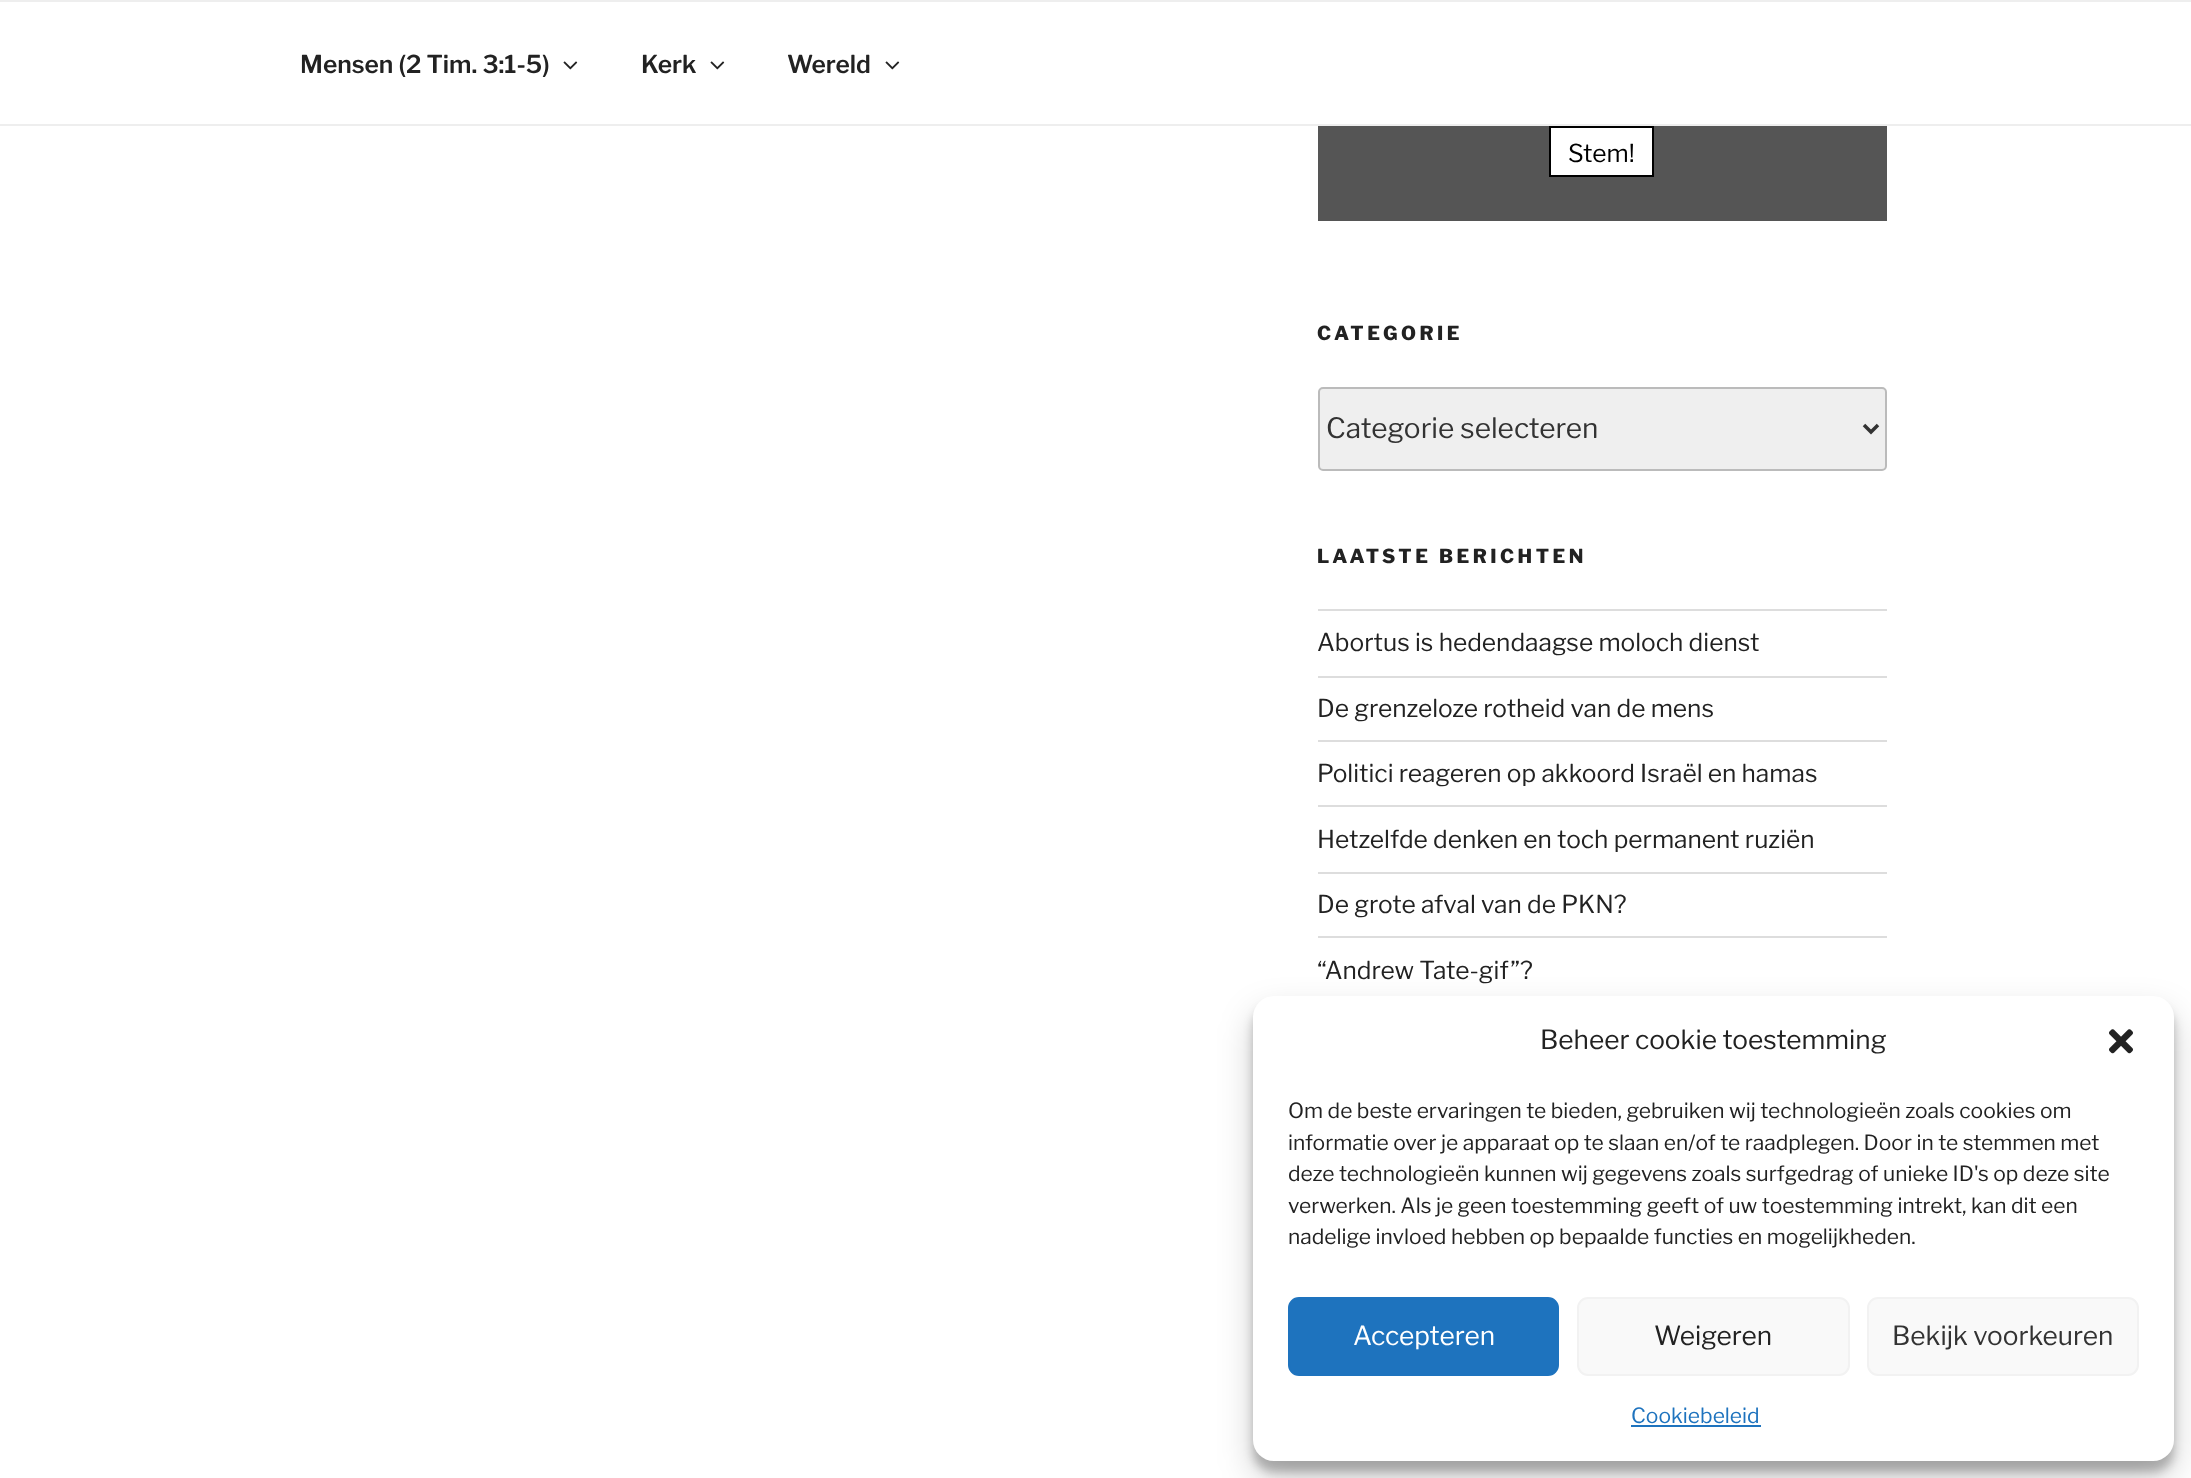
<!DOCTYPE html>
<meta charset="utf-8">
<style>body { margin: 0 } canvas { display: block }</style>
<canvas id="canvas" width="2191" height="1478"></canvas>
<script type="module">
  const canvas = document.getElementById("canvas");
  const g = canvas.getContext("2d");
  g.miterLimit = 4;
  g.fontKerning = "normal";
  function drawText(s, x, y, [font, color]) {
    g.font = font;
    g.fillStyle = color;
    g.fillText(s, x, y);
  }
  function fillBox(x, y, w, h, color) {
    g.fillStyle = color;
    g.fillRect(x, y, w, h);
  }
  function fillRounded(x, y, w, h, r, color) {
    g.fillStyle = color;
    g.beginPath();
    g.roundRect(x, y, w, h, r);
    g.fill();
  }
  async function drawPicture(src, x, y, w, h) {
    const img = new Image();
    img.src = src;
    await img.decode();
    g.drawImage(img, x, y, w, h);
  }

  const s1 = ["100 24.5px 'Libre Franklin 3'", "#222222"];
  const s2 = ["100 24.5px 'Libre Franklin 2'", "#000000"];
  const s3 = ["100 19.25px Libre Franklin", "#222222"];
  const s4 = ["100 28px 'Libre Franklin 2'", "#333333"];
  const s5 = ["100 24.5px 'Libre Franklin 2'", "#222222"];
  const s6 = ["100 26.25px 'Libre Franklin 2'", "#222222"];
  const s7 = ["100 21px 'Libre Franklin 2'", "#222222"];
  const s8 = ["100 26.25px 'Libre Franklin 2'", "#FFFFFF"];
  const s9 = ["100 26.25px 'Libre Franklin 2'", "#333333"];
  const s10 = ["100 21px 'Libre Franklin 2'", "#1E73BE"];

  fillBox(0, 0, 2191, 1478, "#FFFFFF");
  fillBox(0, 0, 2191, 2, "#EEEEEE");
  fillBox(0, 124, 2191, 2, "#EEEEEE");
  drawText("Mensen (2 Tim. 3:1-5)", 300, 73, s1);
  await drawPicture("pic1.png", 563, 61, 15, 9);
  drawText("Kerk", 641, 73, s1);
  await drawPicture("pic1.png", 710, 61, 15, 9);
  drawText("Wereld", 787, 73, s1);
  await drawPicture("pic1.png", 885, 61, 15, 9);
  fillBox(1318, 126, 569, 95, "#555555");
  g.fillStyle = "#FFFFFF";
  g.beginPath();
  g.rect(1550, 127, 103, 49);
  g.fill();
  g.strokeStyle = "#000000";
  g.lineWidth = 2;
  g.stroke();
  drawText("Stem!", 1568, 162, s2);
  g.letterSpacing = "3.5px";
  drawText("CATEGORIE", 1317, 340, s3);
  g.fillStyle = "#EFEFEF";
  g.beginPath();
  g.roundRect(1319, 388, 567, 82, 4);
  g.fill();
  g.strokeStyle = "#BBBBBB";
  g.stroke();
  g.beginPath();
  g.moveTo(1864, 425);
  g.lineTo(1871, 432);
  g.lineTo(1878, 425);
  g.strokeStyle = "#333333";
  g.lineWidth = 3.5;
  g.stroke();
  g.letterSpacing = "0px";
  drawText("Categorie selecteren", 1326, 438, s4);
  g.letterSpacing = "3.5px";
  drawText("LAATSTE BERICHTEN", 1317, 563, s3);
  fillBox(1318, 609, 569, 2, "#DDDDDD");
  fillBox(1318, 676, 569, 2, "#DDDDDD");
  g.letterSpacing = "0px";
  drawText("Abortus is hedendaagse moloch dienst", 1317, 651, s5);
  fillBox(1318, 740, 569, 2, "#DDDDDD");
  drawText("De grenzeloze rotheid van de mens", 1317, 717, s5);
  fillBox(1318, 805, 569, 2, "#DDDDDD");
  drawText("Politici reageren op akkoord Israël en hamas", 1317, 782, s5);
  fillBox(1318, 872, 569, 2, "#DDDDDD");
  drawText("Hetzelfde denken en toch permanent ruziën", 1317, 848, s5);
  fillBox(1318, 936, 569, 2, "#DDDDDD");
  drawText("De grote afval van de PKN?", 1317, 913, s5);
  drawText("“Andrew Tate-gif”?", 1317, 979, s5);
  g.fillStyle = "rgba(0, 0, 0, 0.23)";
  g.filter = "blur(5px)";
  g.beginPath();
  g.roundRect(1253, 1006, 921, 466, 21);
  g.fill();
  g.filter = "none";
  g.fillStyle = "rgba(0, 0, 0, 0.19)";
  g.filter = "blur(17.5px)";
  g.beginPath();
  g.roundRect(1253, 1013, 921, 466, 21);
  g.fill();
  g.filter = "none";
  fillRounded(1253, 996, 921, 465, 21, "#FFFFFF");
  drawText("Beheer cookie toestemming", 1540, 1049, s6);
  await drawPicture("pic2.png", 2109, 1029, 24, 25);
  drawText("Om de beste ervaringen te bieden, gebruiken wij technologieën zoals cookies om", 1288, 1118, s7);
  drawText("informatie over je apparaat op te slaan en/of te raadplegen. Door in te stemmen met", 1288, 1150, s7);
  drawText("deze technologieën kunnen wij gegevens zoals surfgedrag of unieke ID's op deze site", 1288, 1181, s7);
  drawText("verwerken. Als je geen toestemming geeft of uw toestemming intrekt, kan dit een", 1288, 1213, s7);
  drawText("nadelige invloed hebben op bepaalde functies en mogelijkheden.", 1288, 1244, s7);
  g.fillStyle = "#1E73BE";
  g.beginPath();
  g.roundRect(1289, 1298, 269, 77, 10);
  g.fill();
  g.strokeStyle = "#1E73BE";
  g.lineWidth = 2;
  g.stroke();
  drawText("Accepteren", 1353, 1345, s8);
  g.fillStyle = "#F9F9F9";
  g.beginPath();
  g.roundRect(1578, 1298, 271, 77, 10);
  g.fill();
  g.strokeStyle = "#F2F2F2";
  g.stroke();
  drawText("Weigeren", 1654, 1345, s6);
  g.fillStyle = "#F9F9F9";
  g.beginPath();
  g.roundRect(1868, 1298, 270, 77, 10);
  g.fill();
  g.stroke();
  drawText("Bekijk voorkeuren", 1892, 1345, s9);
  drawText("Cookiebeleid", 1631, 1423, s10);
  fillBox(1631, 1425, 130, 2, "#1E73BE");
</script>
